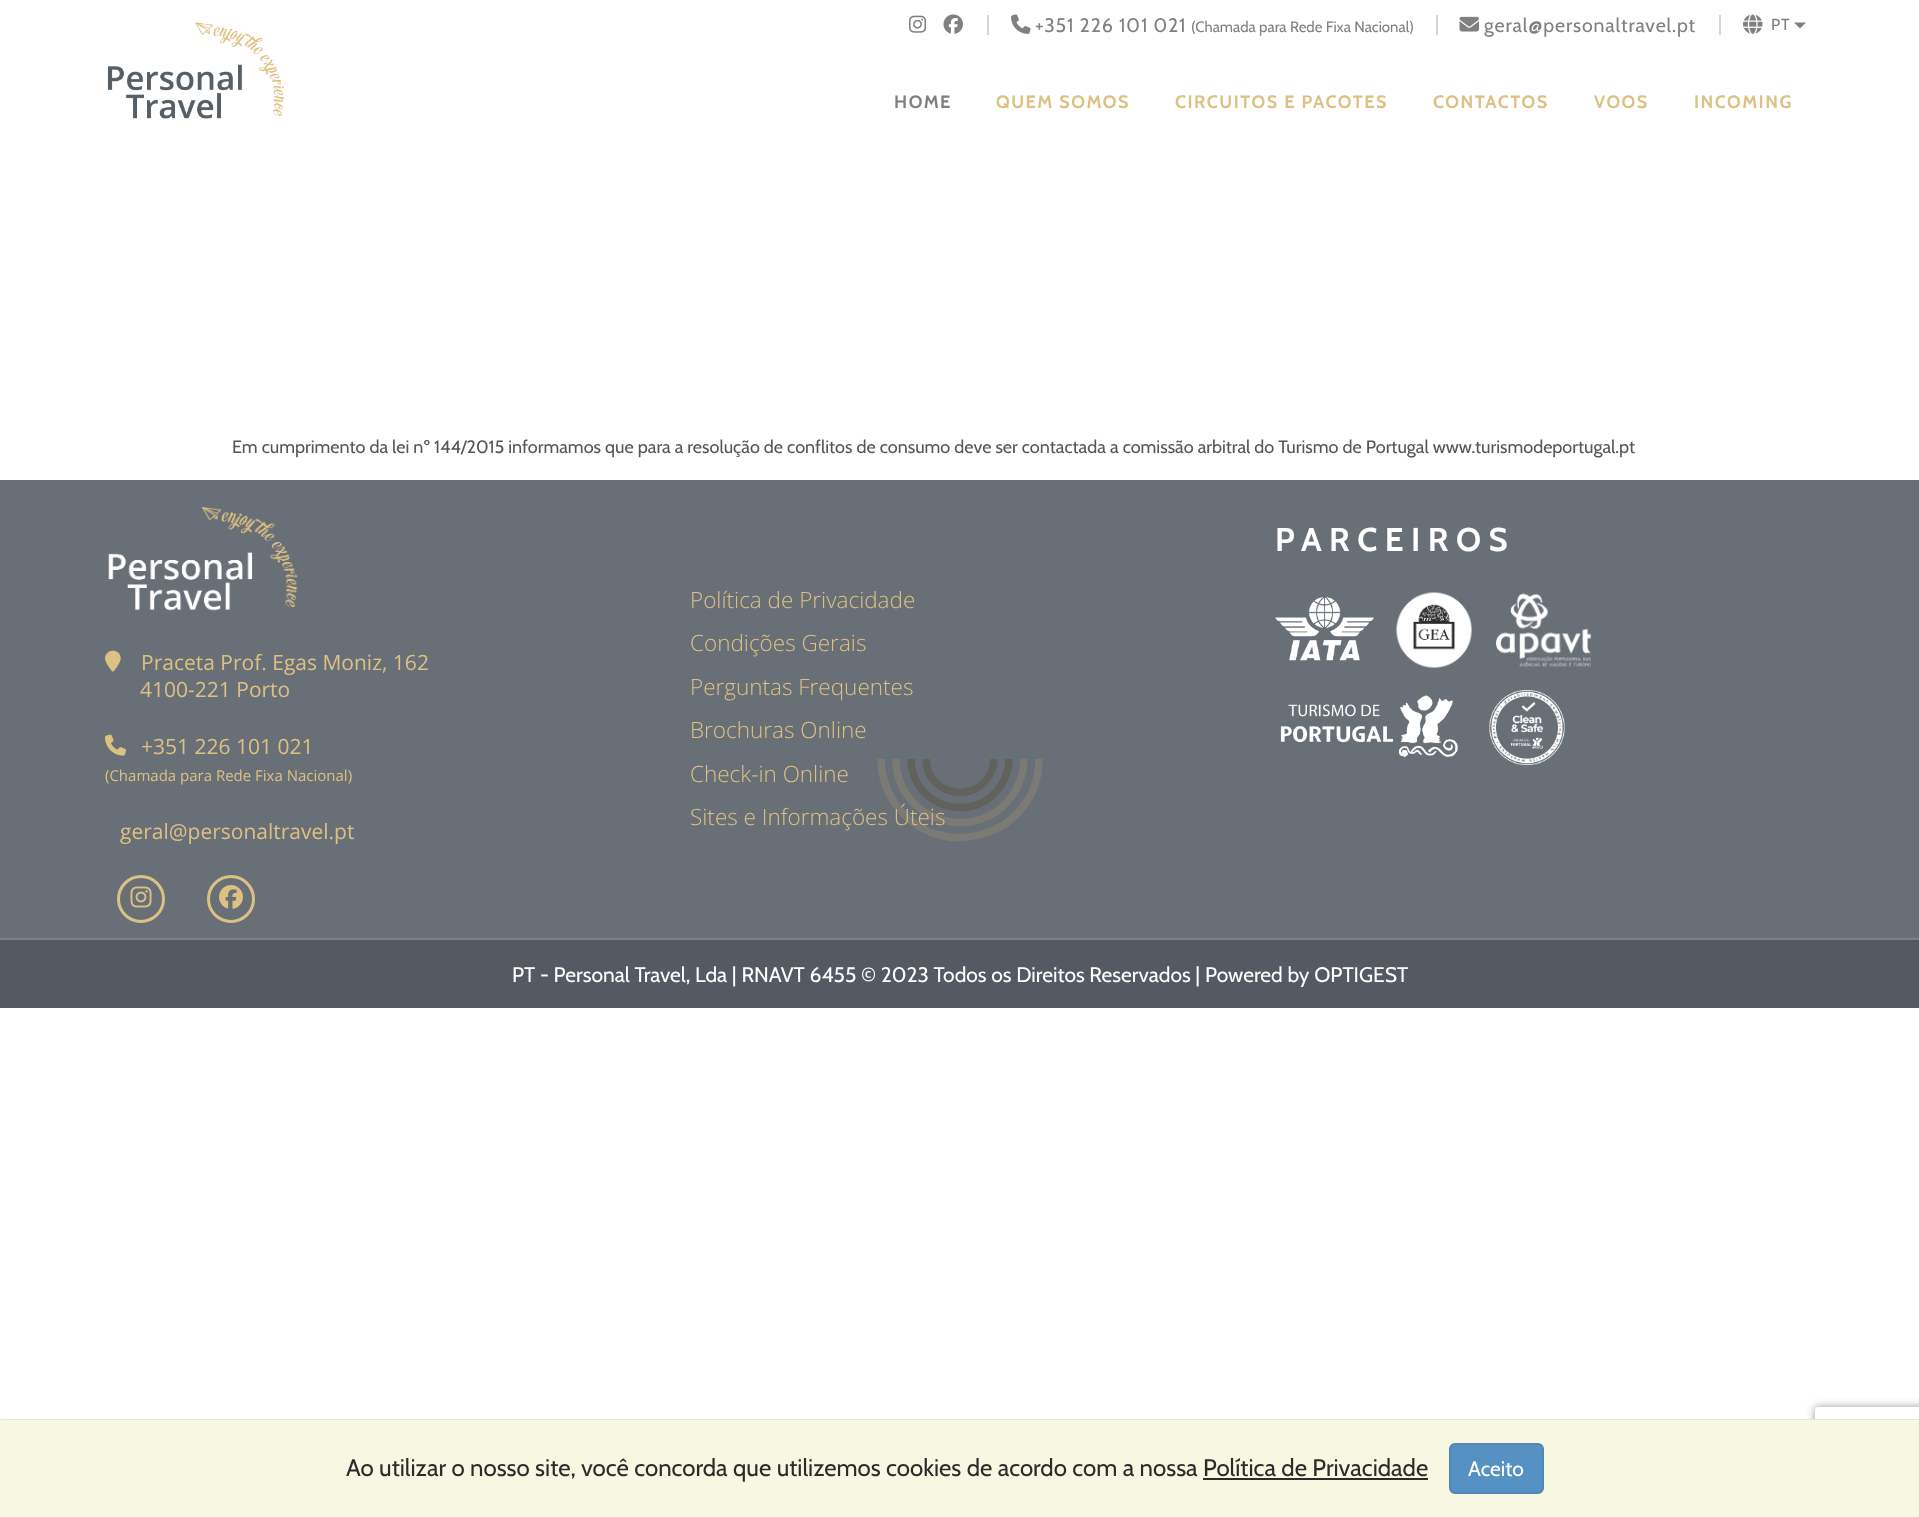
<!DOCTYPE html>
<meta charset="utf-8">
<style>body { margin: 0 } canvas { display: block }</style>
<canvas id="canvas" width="1919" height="1517"></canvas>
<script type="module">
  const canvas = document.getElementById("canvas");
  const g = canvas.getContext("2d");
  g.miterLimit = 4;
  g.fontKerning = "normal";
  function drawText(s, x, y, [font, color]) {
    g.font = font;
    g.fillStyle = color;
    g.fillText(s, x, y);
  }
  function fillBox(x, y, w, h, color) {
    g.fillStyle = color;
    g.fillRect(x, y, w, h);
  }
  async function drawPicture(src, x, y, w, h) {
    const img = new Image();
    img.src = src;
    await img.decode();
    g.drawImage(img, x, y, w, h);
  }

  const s1 = ["19.5px Cabin", "#808080"];
  const s2 = ["15px Cabin", "#808080"];
  const s3 = ["16px Cabin", "#808080"];
  const s4 = ["bold 18px Cabin", "#808080"];
  const s5 = ["bold 18px Cabin", "#DDC183"];
  const s6 = ["18px Cabin", "#565656"];
  const s7 = ["bold 33px Cabin", "#FFFFFF"];
  const s8 = ["21px Open Sans", "#DDC183"];
  const s9 = ["15px Open Sans", "#DDC183"];
  const s10 = ["300 22.5px Open Sans", "#DDC183"];
  const s11 = ["21px Cabin", "#FFFFFF"];
  const s12 = ["24px Cabin", "#2B2B2B"];

  fillBox(0, 0, 1919, 1517, "#FFFFFF");
  await drawPicture("pic1.png", 107, 22, 177, 97);
  fillBox(987, 15, 2, 20, "#D5D5D5");
  await drawPicture("pic2.png", 909, 15, 18, 18);
  await drawPicture("pic3.png", 943, 14, 20, 20);
  fillBox(1436, 15, 2, 20, "#D5D5D5");
  await drawPicture("pic4.png", 1011, 14, 20, 20);
  g.letterSpacing = "0.9px";
  drawText("+351 226 101 021", 1035, 32, s1);
  g.letterSpacing = "0px";
  drawText("(Chamada para Rede Fixa Nacional)", 1191, 32, s2);
  fillBox(1719, 15, 2, 20, "#D5D5D5");
  await drawPicture("pic5.png", 1459, 16, 20, 16);
  g.letterSpacing = "0.9px";
  drawText("geral@personaltravel.pt", 1484, 32, s1);
  await drawPicture("pic6.png", 1743, 14, 20, 20);
  drawText("PT", 1771, 30, s3);
  g.beginPath();
  g.moveTo(1794, 22.5);
  g.lineTo(1806, 22.5);
  g.lineTo(1800, 28.5);
  g.closePath();
  g.fill();
  g.letterSpacing = "1.5px";
  drawText("HOME", 894, 108, s4);
  drawText("QUEM SOMOS", 996, 108, s5);
  drawText("CIRCUITOS E PACOTES", 1175, 108, s5);
  drawText("CONTACTOS", 1433, 108, s5);
  drawText("VOOS", 1594, 108, s5);
  drawText("INCOMING", 1694, 108, s5);
  g.letterSpacing = "0px";
  drawText("Em cumprimento da lei nº 144/2015 informamos que para a resolução de conflitos de consumo deve ser contactada a comissão arbitral do Turismo de Portugal www.turismodeportugal.pt", 232, 453, s6);
  fillBox(0, 480, 1919, 458, "#696F77");
  g.letterSpacing = "7.5px";
  drawText("PARCEIROS", 1275, 551, s7);
  await drawPicture("pic7.png", 1275, 597, 99, 64);
  await drawPicture("pic8.png", 1396, 592, 76, 76);
  await drawPicture("pic9.png", 1496, 593, 96, 74);
  await drawPicture("pic10.png", 1280, 695, 178, 63);
  await drawPicture("pic11.png", 1489, 690, 76, 75);
  await drawPicture("pic12.png", 108, 507, 190, 104);
  await drawPicture("pic13.png", 105, 650, 16, 22);
  g.letterSpacing = "0px";
  drawText("Praceta Prof. Egas Moniz, 162", 141, 670, s8);
  drawText("4100-221 Porto", 140, 697, s8);
  await drawPicture("pic14.png", 105, 734, 21, 22);
  drawText("+351 226 101 021", 141, 754, s8);
  drawText("(Chamada para Rede Fixa Nacional)", 105, 781, s9);
  drawText("geral@personaltravel.pt", 120, 839, s8);
  g.beginPath();
  g.arc(141, 899, 22.5, 0, Math.PI * 2);
  g.strokeStyle = "#DDC183";
  g.lineWidth = 3;
  g.stroke();
  await drawPicture("pic15.png", 130, 886, 22, 22);
  g.beginPath();
  g.arc(231, 899, 22.5, 0, Math.PI * 2);
  g.stroke();
  await drawPicture("pic16.png", 219, 885, 24, 24);
  drawText("Política de Privacidade", 690, 608, s10);
  drawText("Condições Gerais", 690, 651, s10);
  drawText("Perguntas Frequentes", 690, 695, s10);
  drawText("Brochuras Online", 690, 738, s10);
  drawText("Check-in Online", 690, 782, s10);
  drawText("Sites e Informações Úteis", 690, 825, s10);
  fillBox(0, 940, 1919, 68, "#545962");
  fillBox(0, 938, 1919, 2, "#808080");
  drawText("PT - Personal Travel, Lda | RNAVT 6455 © 2023 Todos os Direitos Reservados | Powered by OPTIGEST", 512, 982, s11);
  g.beginPath();
  g.moveTo(1039, 759);
  g.bezierCurveTo(1039, 836.5, 937.5, 867, 894.5, 802.5);
  g.bezierCurveTo(886, 790, 881, 774.5, 881, 759);
  g.strokeStyle = "rgba(214, 180, 105, 0.17)";
  g.lineWidth = 7.5;
  g.stroke();
  g.beginPath();
  g.moveTo(1024, 759);
  g.bezierCurveTo(1024, 771.5, 1020, 784, 1013, 794.5);
  g.bezierCurveTo(978, 846.5, 896, 821.5, 896, 759);
  g.stroke();
  g.beginPath();
  g.moveTo(1009, 759);
  g.bezierCurveTo(1009, 768.5, 1006, 778, 1000.5, 786);
  g.bezierCurveTo(974, 826, 911, 807, 911, 759);
  g.strokeStyle = "#62625D";
  g.stroke();
  g.beginPath();
  g.moveTo(994, 759);
  g.bezierCurveTo(994, 765.5, 992, 772, 988, 777.5);
  g.bezierCurveTo(969.5, 805, 926, 792, 926, 759);
  g.stroke();
  g.save();
  g.beginPath();
  g.moveTo(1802, 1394);
  g.lineTo(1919, 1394);
  g.lineTo(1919, 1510);
  g.lineTo(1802, 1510);
  g.closePath();
  g.moveTo(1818, 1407);
  g.lineTo(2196, 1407);
  g.bezierCurveTo(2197.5, 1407, 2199, 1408.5, 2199, 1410);
  g.lineTo(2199, 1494);
  g.bezierCurveTo(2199, 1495.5, 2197.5, 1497, 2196, 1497);
  g.lineTo(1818, 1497);
  g.bezierCurveTo(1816.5, 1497, 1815, 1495.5, 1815, 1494);
  g.lineTo(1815, 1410);
  g.bezierCurveTo(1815, 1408.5, 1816.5, 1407, 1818, 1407);
  g.closePath();
  g.clip("evenodd");
  g.fillStyle = "#969696";
  g.filter = "blur(4px)";
  g.beginPath();
  g.roundRect(1815, 1407, 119, 90, 3);
  g.fill();
  g.filter = "none";
  g.restore();
  fillBox(0, 1419, 1919, 98, "#F7F7E2");
  g.fillStyle = "#E5E5E5";
  g.beginPath();
  g.moveTo(0, 1419);
  g.lineTo(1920, 1419);
  g.lineTo(1918, 1420);
  g.lineTo(2, 1420);
  g.closePath();
  g.fill();
  drawText("Ao utilizar o nosso site, você concorda que utilizemos cookies de acordo com a nossa Política de Privacidade", 346, 1476, s12);
  g.fillStyle = "#5691C3";
  g.beginPath();
  g.roundRect(1450, 1444, 93, 49, 5);
  g.fill();
  g.strokeStyle = "#5286B3";
  g.lineWidth = 2;
  g.stroke();
  drawText("Aceito", 1468, 1476, s11);
  fillBox(1203, 1478, 225, 2, "#2B2B2B");
</script>
